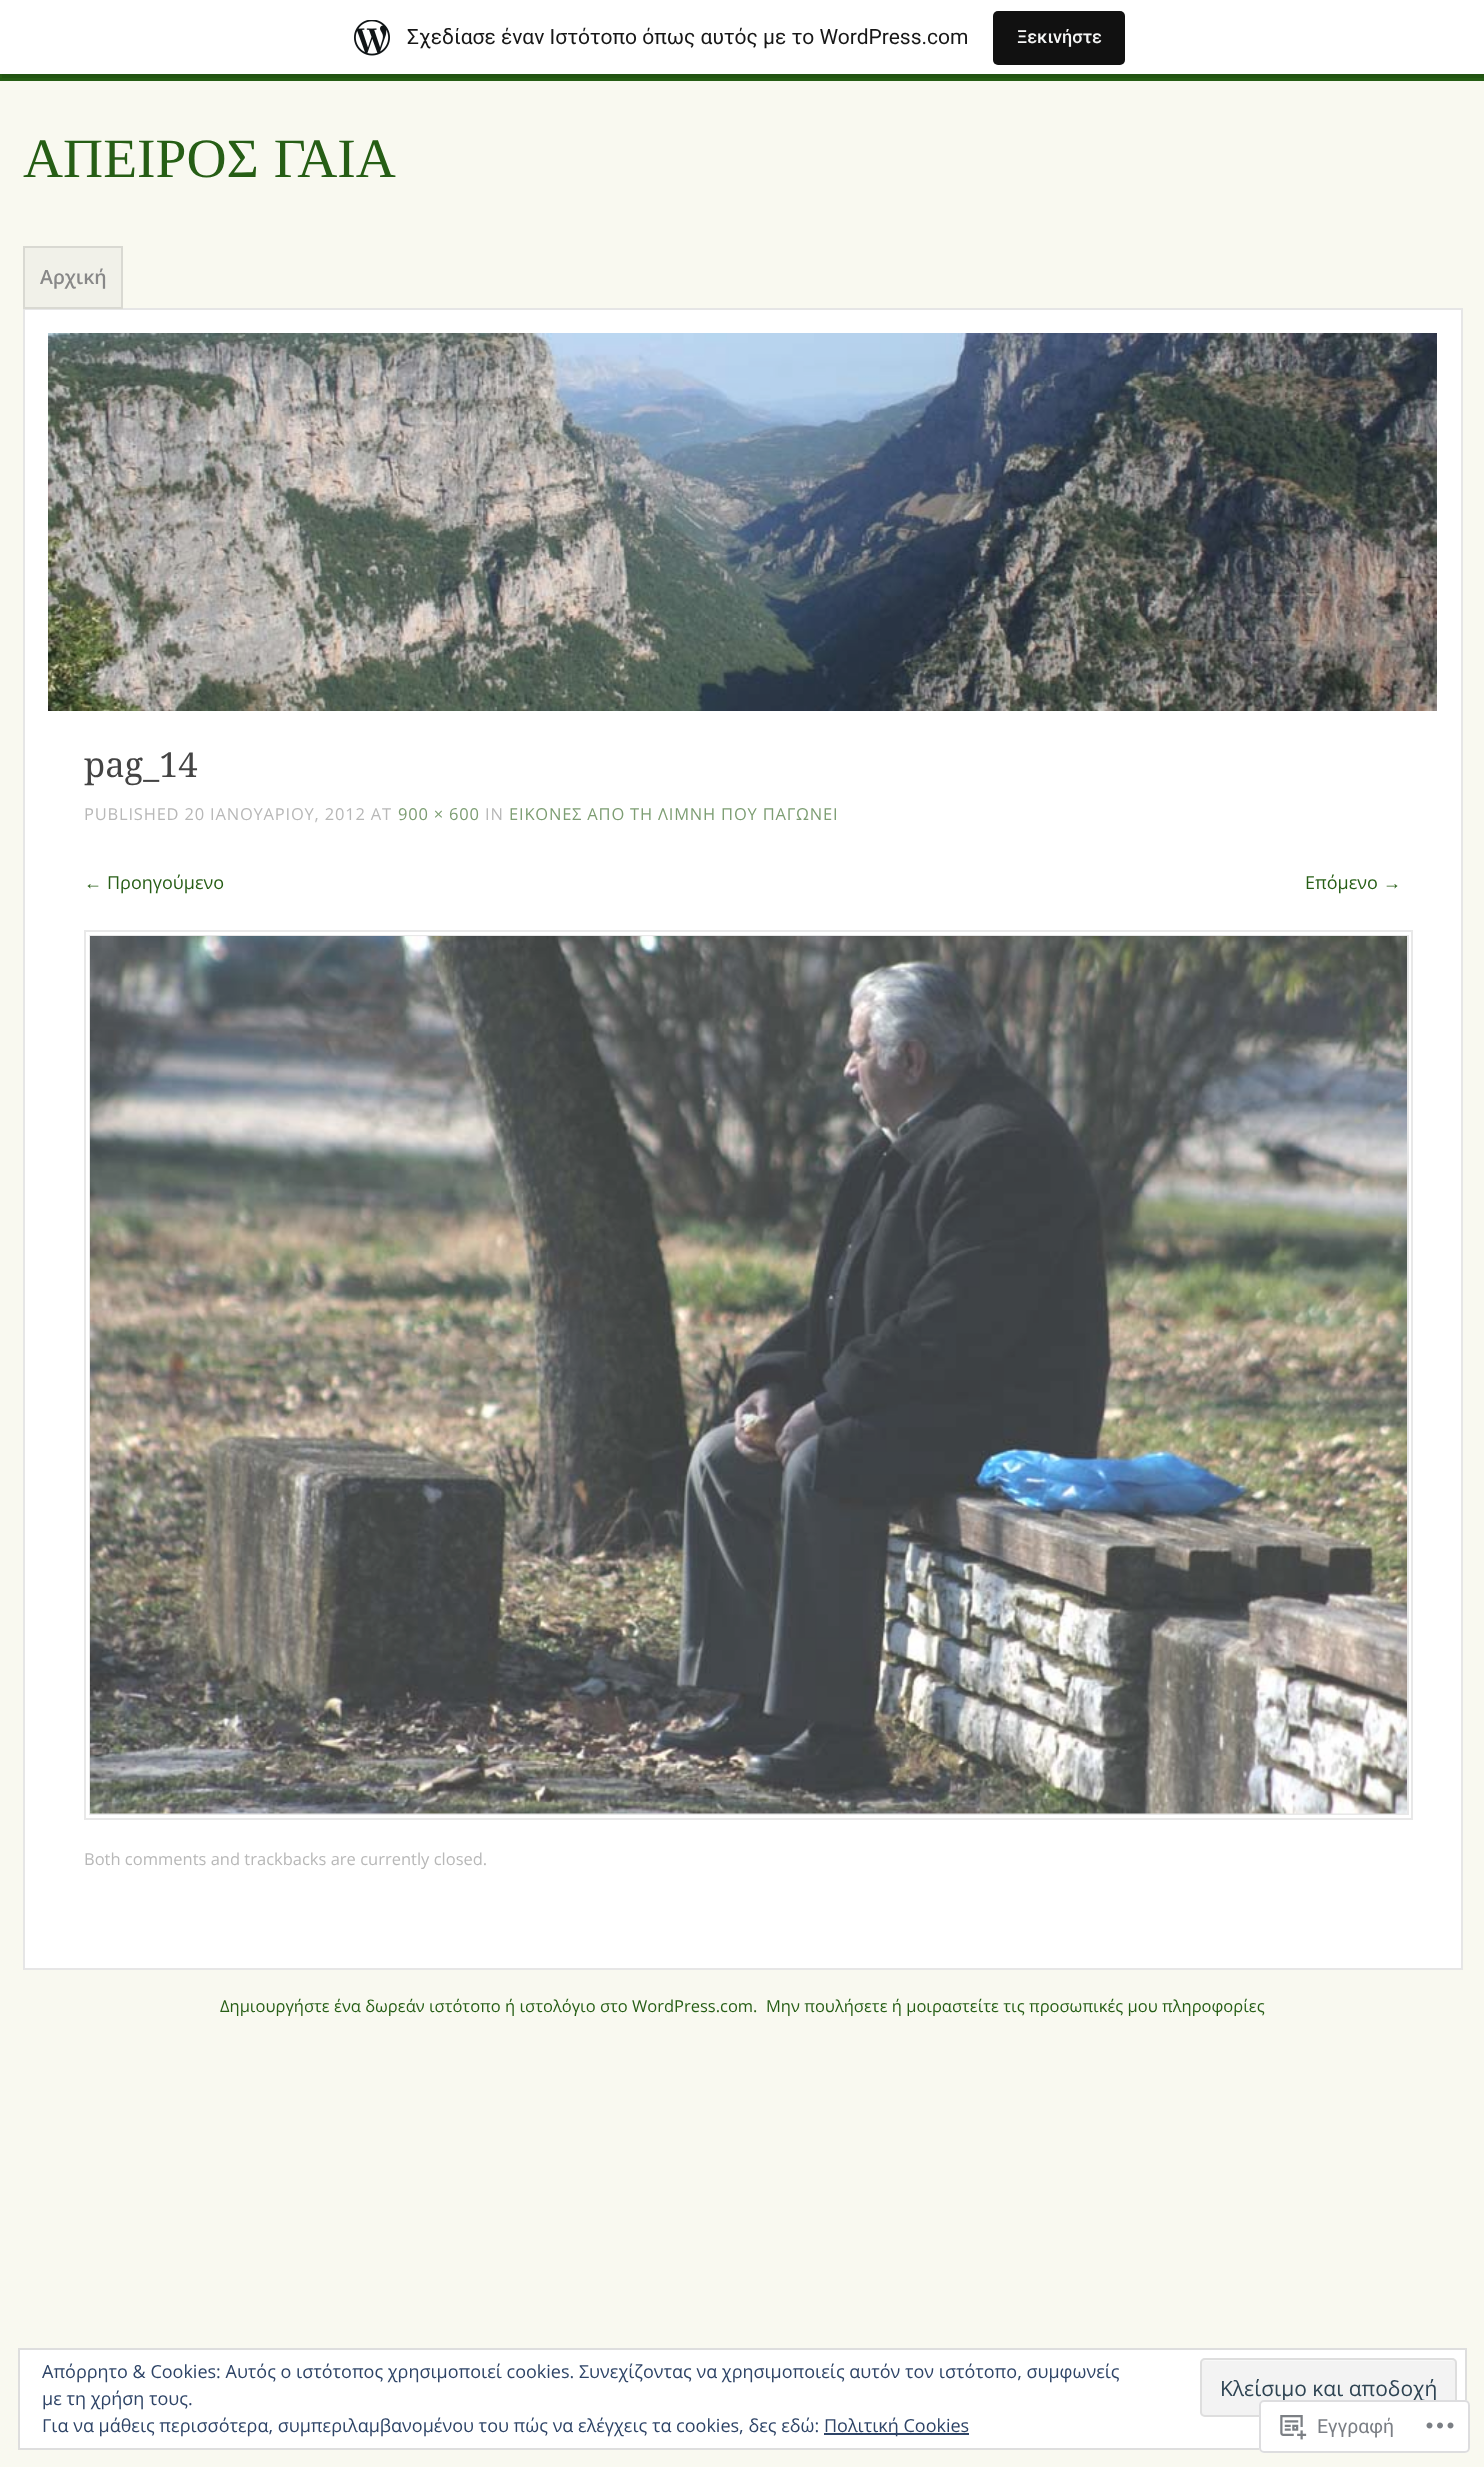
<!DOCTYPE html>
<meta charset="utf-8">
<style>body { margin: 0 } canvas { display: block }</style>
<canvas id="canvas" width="1484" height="2467"></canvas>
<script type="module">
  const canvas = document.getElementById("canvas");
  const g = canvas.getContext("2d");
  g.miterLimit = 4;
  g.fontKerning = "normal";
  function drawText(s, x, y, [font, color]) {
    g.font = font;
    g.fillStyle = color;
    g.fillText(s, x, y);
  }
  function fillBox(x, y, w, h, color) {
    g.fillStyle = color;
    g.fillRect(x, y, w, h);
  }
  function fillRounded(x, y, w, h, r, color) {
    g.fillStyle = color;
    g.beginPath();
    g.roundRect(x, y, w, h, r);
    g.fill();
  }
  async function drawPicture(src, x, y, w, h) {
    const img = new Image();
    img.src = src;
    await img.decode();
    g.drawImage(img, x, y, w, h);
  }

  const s1 = ["21px Roboto", "#171717"];
  const s2 = ["500 18px Roboto", "#F6F7F7"];
  const s3 = ["55.5px Liberation Serif", "#265E15"];
  const s4 = ["600 19.5px Open Sans", "#888888"];
  const s5 = ["34.5px Droid Serif", "#444444"];
  const s6 = ["16.5px Open Sans", "#B8B8B8"];
  const s7 = ["16.5px Open Sans", "#7D9E73"];
  const s8 = ["18px Liberation Sans", "#265E15"];
  const s9 = ["18px Open Sans", "#265E15"];
  const s10 = ["16.5px Open Sans", "#265E15"];
  const s11 = ["18px Open Sans", "#2E4467"];
  const s12 = ["21px Open Sans", "#2E4453"];
  const s13 = ["19.5px Roboto", "#7B7F85"];

  fillBox(0, 0, 1484, 2467, "#F9F9F0");
  fillBox(0, 74, 1484, 7, "#265E15");
  g.fillStyle = "rgba(0, 0, 0, 0.05)";
  g.filter = "blur(1.5px)";
  g.beginPath();
  g.rect(0, 2, 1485, 73);
  g.fill();
  g.filter = "none";
  g.fillStyle = "rgba(0, 0, 0, 0.08)";
  g.beginPath();
  g.moveTo(2, 74);
  g.lineTo(2, 78);
  g.lineTo(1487, 78);
  g.lineTo(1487, 5);
  g.lineTo(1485, 5);
  g.lineTo(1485, 74);
  g.closePath();
  g.fill();
  fillBox(0, 0, 1484, 74, "#FFFFFF");
  await drawPicture("pic1.png", 354, 20, 36, 36);
  drawText("Σχεδίασε έναν Ιστότοπο όπως αυτός με το WordPress.com", 407, 44, s1);
  fillRounded(993, 11, 132, 54, 5, "#111111");
  drawText("Ξεκινήστε", 1017, 43, s2);
  g.wordSpacing = "1px";
  drawText("ΑΠΕΙΡΟΣ ΓΑΙΑ", 23, 177, s3);
  g.fillStyle = "#FFFFFF";
  g.beginPath();
  g.rect(24, 309, 1438, 1660);
  g.fill();
  g.strokeStyle = "#E6E6E6";
  g.lineWidth = 2;
  g.stroke();
  g.fillStyle = "#F1F1E9";
  g.beginPath();
  g.rect(24, 247, 98, 61);
  g.fill();
  g.strokeStyle = "#D9D9D2";
  g.stroke();
  g.wordSpacing = "0px";
  drawText("Αρχική", 40, 284, s4);
  await drawPicture("pic2.png", 48, 333, 1389, 378);
  drawText("pag_14", 84, 777, s5);
  g.letterSpacing = "0.8px";
  drawText("PUBLISHED 20 ΙΑΝΟΥΑΡΙΟΥ, 2012 AT", 84, 820, s6);
  drawText("900 × 600", 398, 820, s7);
  drawText("IN", 485, 820, s6);
  drawText("ΕΙΚΟΝΕΣ ΑΠΟ ΤΗ ΛΙΜΝΗ ΠΟΥ ΠΑΓΩΝΕΙ", 509, 820, s7);
  g.letterSpacing = "0px";
  drawText("←", 84, 889, s8);
  drawText("Προηγούμενο", 107, 889, s9);
  drawText("Επόμενο", 1305, 889, s9);
  drawText("→", 1383, 889, s8);
  g.strokeStyle = "#E8E8E8";
  g.strokeRect(85, 931, 1327, 888);
  g.strokeRect(90, 936, 1318, 878);
  await drawPicture("pic3.png", 90, 936, 1317, 878);
  drawText("Both comments and trackbacks are currently closed.", 84, 1865, s6);
  drawText("Δημιουργήστε ένα δωρεάν ιστότοπο ή ιστολόγιο στο WordPress.com.", 220, 2012, s10);
  drawText("Μην πουλήσετε ή μοιραστείτε τις προσωπικές μου πληροφορίες", 766, 2012, s10);
  g.fillStyle = "#FFFFFF";
  g.beginPath();
  g.rect(19, 2349, 1447, 100);
  g.fill();
  g.strokeStyle = "#DEDEDE";
  g.stroke();
  drawText("Απόρρητο & Cookies: Αυτός ο ιστότοπος χρησιμοποιεί cookies. Συνεχίζοντας να χρησιμοποιείς αυτόν τον ιστότοπο, συμφωνείς", 42, 2378, s11);
  drawText("με τη χρήση τους.", 42, 2405, s11);
  fillRounded(1200, 2358, 257, 59, 5, "#F3F3F3");
  g.fillStyle = "#F9F9F9";
  g.beginPath();
  g.moveTo(1204, 2361);
  g.lineTo(1453, 2361);
  g.lineTo(1455, 2362);
  g.lineTo(1455, 2364);
  g.bezierCurveTo(1455, 2362, 1454, 2360, 1452, 2360);
  g.lineTo(1205, 2360);
  g.bezierCurveTo(1203, 2360, 1202, 2362, 1202, 2364);
  g.bezierCurveTo(1202, 2362, 1203, 2361, 1204, 2361);
  g.closePath();
  g.fill();
  g.beginPath();
  g.roundRect(1201, 2359, 255, 57, 4);
  g.stroke();
  drawText("Κλείσιμο και αποδοχή", 1220, 2396, s12);
  drawText("Για να μάθεις περισσότερα, συμπεριλαμβανομένου του πώς να ελέγχεις τα cookies, δες εδώ:", 42, 2432, s11);
  fillBox(824, 2433, 145, 2, "#2E4467");
  drawText("Πολιτική Cookies", 824, 2432, s11);
  fillRounded(1259, 2400, 211, 53, 5, "rgba(255, 255, 255, 0.98)");
  g.beginPath();
  g.roundRect(1260, 2401, 209, 51, 4);
  g.strokeStyle = "rgba(220, 220, 222, 0.98)";
  g.stroke();
  await drawPicture("pic4.png", 1280, 2415, 27, 25);
  drawText("Εγγραφή", 1317, 2433, s13);
  await drawPicture("pic5.png", 1426, 2422, 28, 7);
</script>
